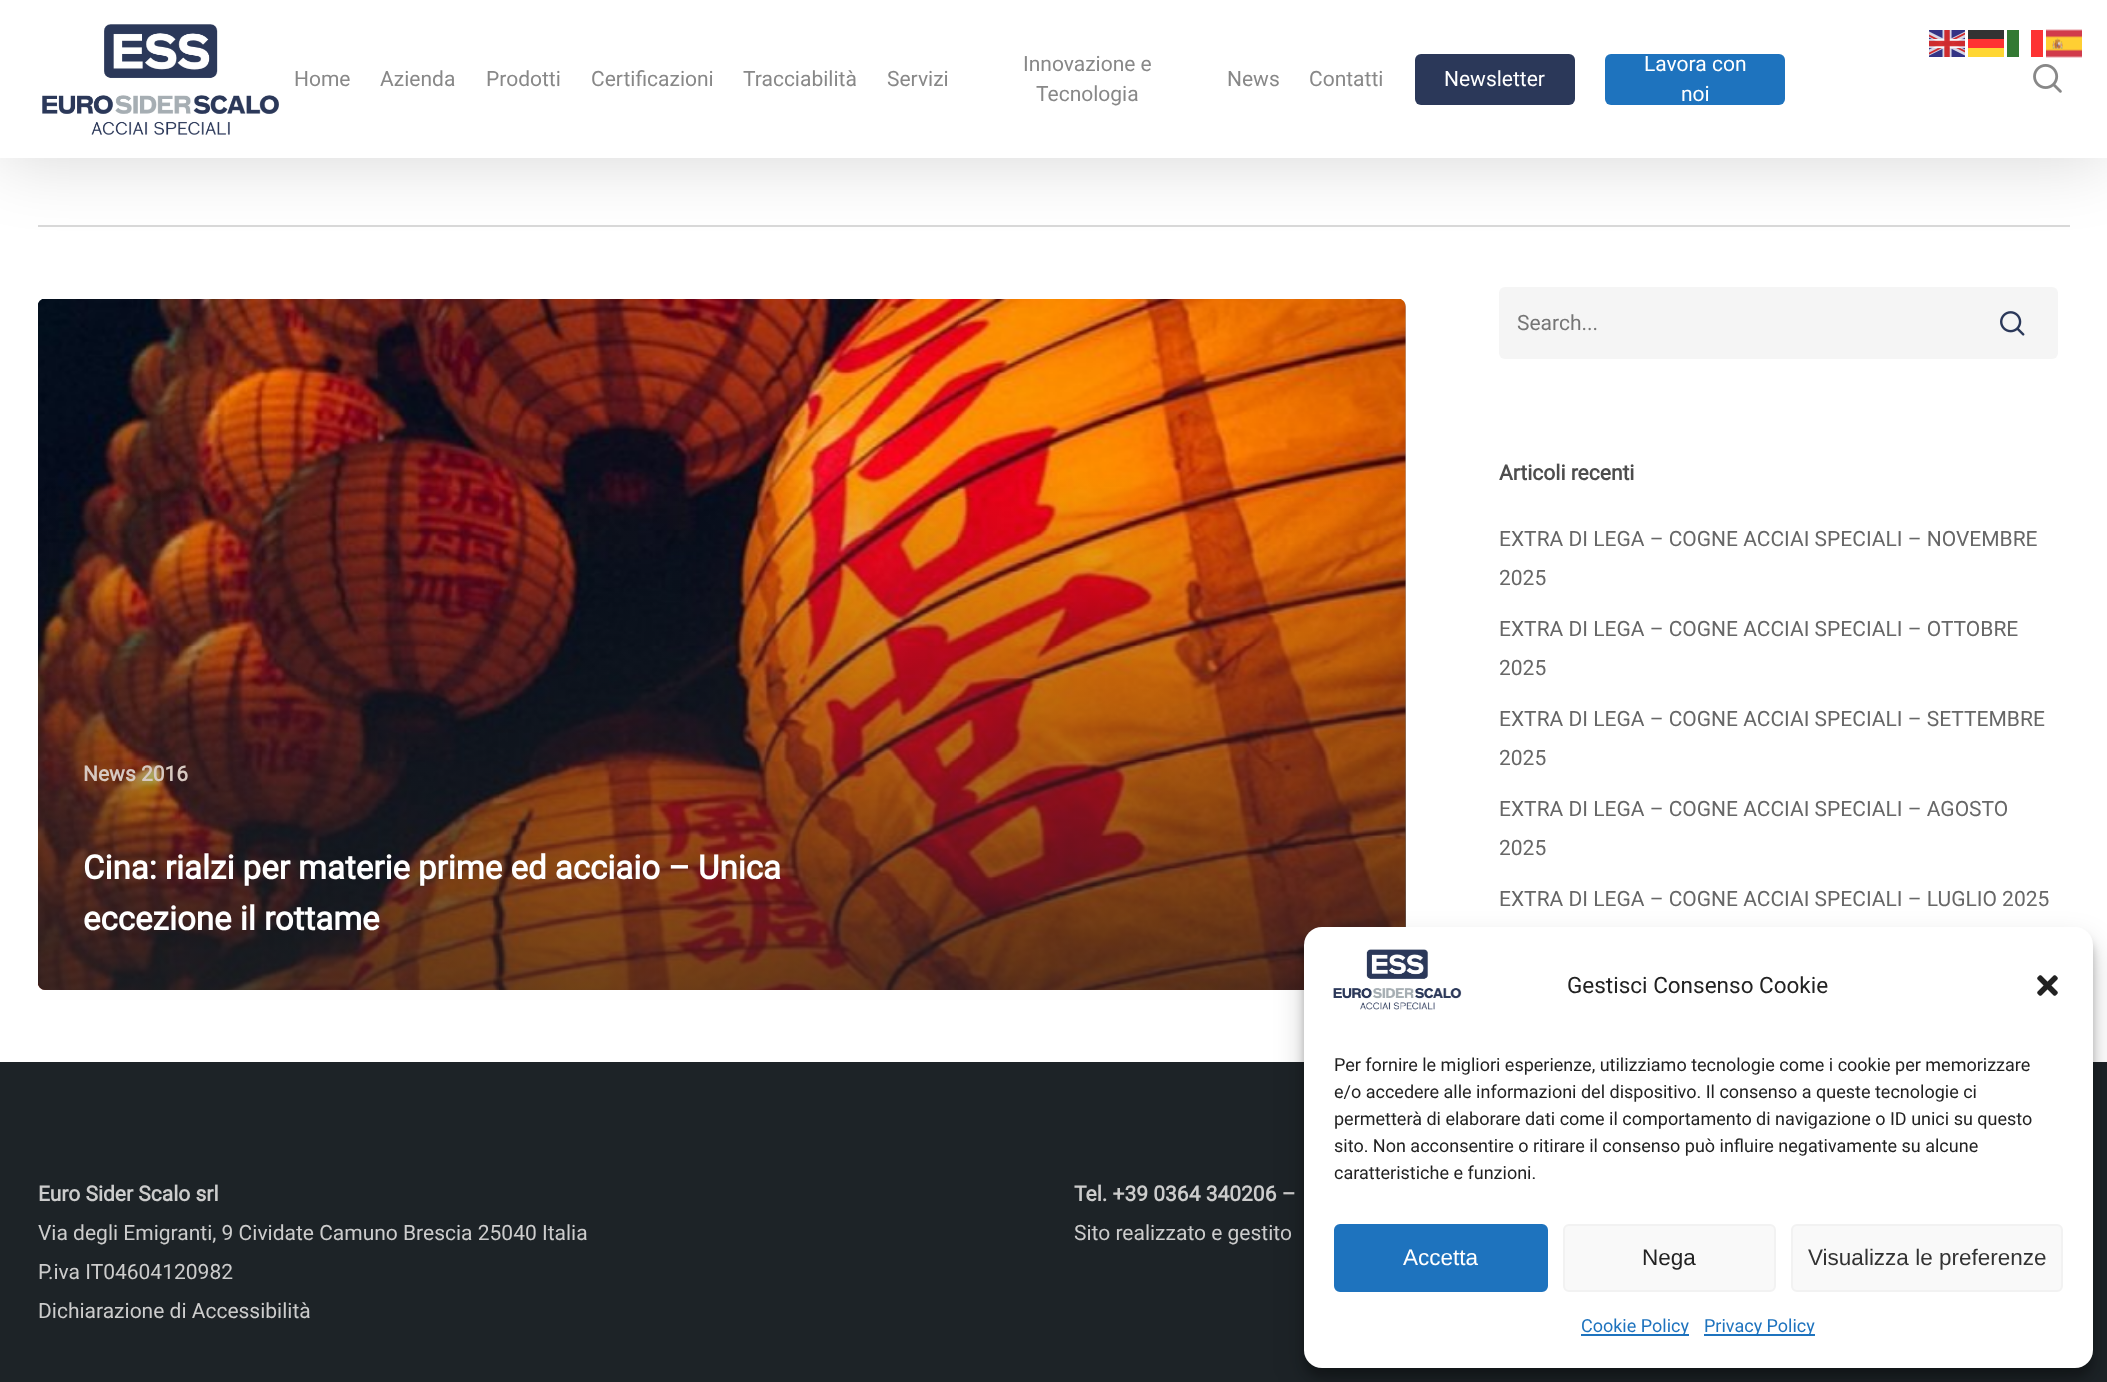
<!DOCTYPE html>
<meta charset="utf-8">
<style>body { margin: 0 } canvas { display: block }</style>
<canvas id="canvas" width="2107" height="1382"></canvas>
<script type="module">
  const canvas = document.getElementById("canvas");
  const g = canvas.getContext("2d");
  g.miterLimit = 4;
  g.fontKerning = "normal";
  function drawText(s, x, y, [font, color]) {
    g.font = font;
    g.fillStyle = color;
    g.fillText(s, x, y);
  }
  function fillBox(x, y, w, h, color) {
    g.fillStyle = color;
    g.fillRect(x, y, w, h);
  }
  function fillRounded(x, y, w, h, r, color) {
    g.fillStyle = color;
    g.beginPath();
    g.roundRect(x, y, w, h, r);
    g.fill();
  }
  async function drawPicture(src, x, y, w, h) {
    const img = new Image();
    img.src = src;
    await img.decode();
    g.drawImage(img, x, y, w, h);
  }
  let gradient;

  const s1 = ["21px Roboto", "#888888"];
  const s2 = ["21px Roboto", "#FFFFFF"];
  const s3 = ["bold 21px Roboto", "#D7C9C1"];
  const s4 = ["bold 33px Roboto", "#FFFFFF"];
  const s5 = ["21px Roboto", "#757575"];
  const s6 = ["bold 21px Roboto", "#4D4D4D"];
  const s7 = ["21px Roboto", "#676767"];
  const s8 = ["bold 21px Roboto", "#CCCCCC"];
  const s9 = ["21px Roboto", "#CCCCCC"];
  const s10 = ["22.5px Roboto", "#222222"];
  const s11 = ["18px Roboto", "#222222"];
  const s12 = ["22.5px Liberation Sans", "#FFFFFF"];
  const s13 = ["22.5px Liberation Sans", "#222222"];
  const s14 = ["22.5px Liberation Sans", "#333333"];
  const s15 = ["18px Roboto", "#1E73BE"];

  fillBox(0, 0, 2107, 1382, "#FFFFFF");
  fillBox(38, 225, 2032, 2, "#D9D9D9");
  g.save();
  g.beginPath();
  g.moveTo(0, 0);
  g.lineTo(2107, 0);
  g.lineTo(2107, 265);
  g.lineTo(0, 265);
  g.closePath();
  g.moveTo(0, 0);
  g.lineTo(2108, 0);
  g.lineTo(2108, 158);
  g.lineTo(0, 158);
  g.closePath();
  g.clip("evenodd");
  g.fillStyle = "rgba(0, 0, 0, 0.15)";
  g.filter = "blur(34px)";
  g.beginPath();
  g.rect(0, 5, 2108, 157);
  g.fill();
  g.filter = "none";
  g.restore();
  await drawPicture("pic1.png", 1929, 30, 36, 27);
  fillBox(1968, 30, 36, 9, "#333333");
  fillBox(2007, 30, 12, 27, "#337933");
  fillBox(2031, 30, 12, 27, "#FD3333");
  await drawPicture("pic2.png", 2046, 29, 36, 29);
  fillBox(1968, 39, 36, 9, "#FF3333");
  fillBox(1968, 48, 36, 9, "#FFD633");
  fillBox(0, 157, 2107, 1, "rgba(255, 255, 255, 0.78)");
  await drawPicture("pic3.png", 42, 24, 237, 111);
  drawText("Home", 294, 86, s1);
  drawText("Azienda", 380, 86, s1);
  drawText("Prodotti", 486, 86, s1);
  drawText("Certificazioni", 591, 86, s1);
  drawText("Tracciabilità", 743, 86, s1);
  drawText("Servizi", 887, 86, s1);
  drawText("Innovazione e", 1023, 71, s1);
  drawText("Tecnologia", 1036, 101, s1);
  drawText("News", 1227, 86, s1);
  drawText("Contatti", 1309, 86, s1);
  fillRounded(1415, 54, 160, 51, 6, "#2B3859");
  drawText("Newsletter", 1444, 86, s2);
  fillRounded(1605, 54, 180, 51, 6, "#1E73BE");
  drawText("Lavora con", 1644, 71, s2);
  drawText("noi", 1681, 101, s2);
  await drawPicture("pic4.png", 2033, 64, 29, 29);
  fillRounded(38, 299, 1368, 691, 8, "#B3B3B3");
  await drawPicture("pic5.png", 38, 299, 1368, 691);
  gradient = g.createLinearGradient(725, 472, 725, 993);
  gradient.addColorStop(0, "rgba(35, 35, 35, 0)");
  gradient.addColorStop(1, "rgba(35, 35, 35, 0.65)");
  g.fillStyle = gradient;
  g.beginPath();
  g.roundRect(38, 473, 1368, 517, [0, 0, 8, 8]);
  g.fill();
  drawText("News 2016", 83, 781, s3);
  drawText("Cina: rialzi per materie prime ed acciaio – Unica", 83, 879, s4);
  drawText("eccezione il rottame", 83, 930, s4);
  fillRounded(1499, 287, 559, 72, 6, "#F5F5F5");
  drawText("Search...", 1517, 330, s5);
  await drawPicture("pic6.png", 2000, 311, 25, 25);
  drawText("Articoli recenti", 1499, 480, s6);
  drawText("EXTRA DI LEGA – COGNE ACCIAI SPECIALI – NOVEMBRE", 1499, 546, s7);
  drawText("2025", 1499, 585, s7);
  drawText("EXTRA DI LEGA – COGNE ACCIAI SPECIALI – OTTOBRE", 1499, 636, s7);
  drawText("2025", 1499, 675, s7);
  drawText("EXTRA DI LEGA – COGNE ACCIAI SPECIALI – SETTEMBRE", 1499, 726, s7);
  drawText("2025", 1499, 765, s7);
  drawText("EXTRA DI LEGA – COGNE ACCIAI SPECIALI – AGOSTO", 1499, 816, s7);
  drawText("2025", 1499, 855, s7);
  drawText("EXTRA DI LEGA – COGNE ACCIAI SPECIALI – LUGLIO 2025", 1499, 906, s7);
  fillBox(0, 1062, 2107, 320, "#1D2327");
  drawText("Euro Sider Scalo srl", 38, 1201, s8);
  drawText("Via degli Emigranti, 9 Cividate Camuno Brescia 25040 Italia", 38, 1240, s9);
  drawText("P.iva IT04604120982", 38, 1279, s9);
  drawText("Dichiarazione di Accessibilità", 38, 1318, s9);
  drawText("Tel. +39 0364 340206 –", 1074, 1201, s8);
  drawText("Sito realizzato e gestito", 1074, 1240, s9);
  g.fillStyle = "rgba(0, 0, 0, 0.23)";
  g.filter = "blur(4.5px)";
  g.beginPath();
  g.roundRect(1304, 936, 789, 441, 18);
  g.fill();
  g.filter = "none";
  g.fillStyle = "rgba(0, 0, 0, 0.19)";
  g.filter = "blur(15px)";
  g.beginPath();
  g.roundRect(1304, 942, 789, 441, 18);
  g.fill();
  g.filter = "none";
  fillRounded(1304, 927, 789, 441, 18, "#FFFFFF");
  await drawPicture("pic7.png", 1333, 949, 129, 61);
  drawText("Gestisci Consenso Cookie", 1567, 993, s10);
  await drawPicture("pic8.png", 2037, 975, 21, 21);
  drawText("Per fornire le migliori esperienze, utilizziamo tecnologie come i cookie per memorizzare", 1334, 1071, s11);
  drawText("e/o accedere alle informazioni del dispositivo. Il consenso a queste tecnologie ci", 1334, 1098, s11);
  drawText("permetterà di elaborare dati come il comportamento di navigazione o ID unici su questo", 1334, 1125, s11);
  drawText("sito. Non acconsentire o ritirare il consenso può influire negativamente su alcune", 1334, 1152, s11);
  drawText("caratteristiche e funzioni.", 1334, 1179, s11);
  g.fillStyle = "#1E73BE";
  g.beginPath();
  g.roundRect(1335, 1225, 212, 66, 5);
  g.fill();
  g.strokeStyle = "#1E73BE";
  g.lineWidth = 2;
  g.stroke();
  drawText("Accetta", 1403, 1265, s12);
  g.fillStyle = "#F9F9F9";
  g.beginPath();
  g.roundRect(1564, 1225, 211, 66, 5);
  g.fill();
  g.strokeStyle = "#F2F2F2";
  g.stroke();
  drawText("Nega", 1642, 1265, s13);
  g.fillStyle = "#F9F9F9";
  g.beginPath();
  g.roundRect(1792, 1225, 270, 66, 5);
  g.fill();
  g.stroke();
  drawText("Visualizza le preferenze", 1808, 1265, s14);
  fillBox(1581, 1334, 108, 2, "#1E73BE");
  drawText("Cookie Policy", 1581, 1332, s15);
  fillBox(1704, 1334, 111, 2, "#1E73BE");
  drawText("Privacy Policy", 1704, 1332, s15);
</script>
